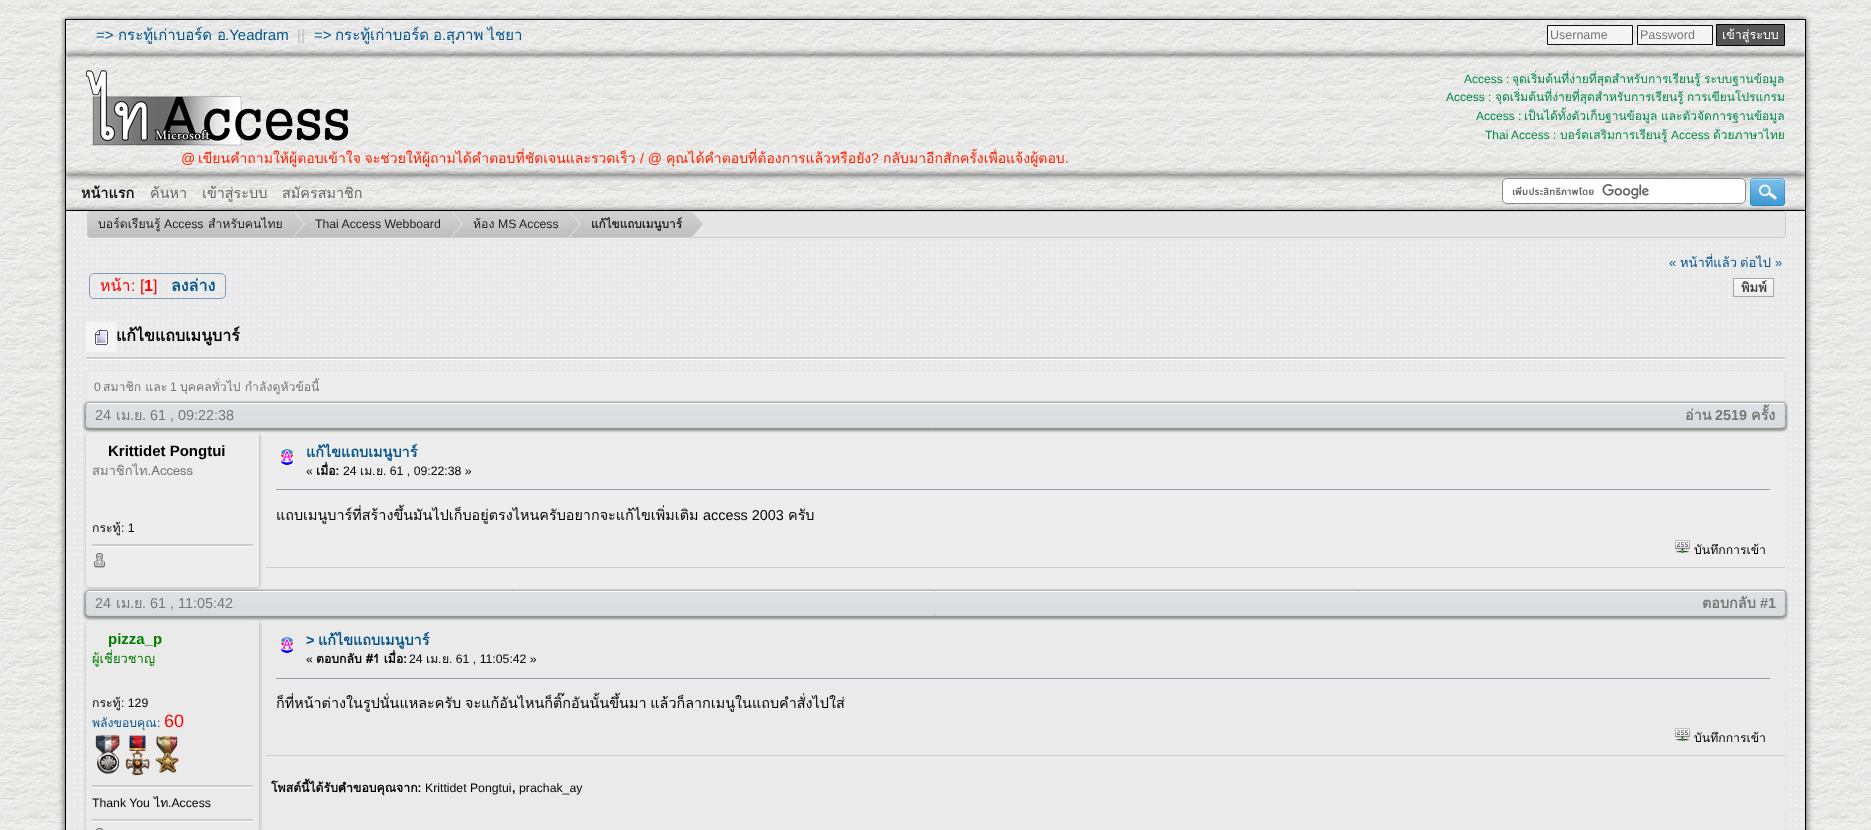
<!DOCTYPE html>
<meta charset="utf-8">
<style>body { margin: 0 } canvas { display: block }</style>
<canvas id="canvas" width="1871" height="830"></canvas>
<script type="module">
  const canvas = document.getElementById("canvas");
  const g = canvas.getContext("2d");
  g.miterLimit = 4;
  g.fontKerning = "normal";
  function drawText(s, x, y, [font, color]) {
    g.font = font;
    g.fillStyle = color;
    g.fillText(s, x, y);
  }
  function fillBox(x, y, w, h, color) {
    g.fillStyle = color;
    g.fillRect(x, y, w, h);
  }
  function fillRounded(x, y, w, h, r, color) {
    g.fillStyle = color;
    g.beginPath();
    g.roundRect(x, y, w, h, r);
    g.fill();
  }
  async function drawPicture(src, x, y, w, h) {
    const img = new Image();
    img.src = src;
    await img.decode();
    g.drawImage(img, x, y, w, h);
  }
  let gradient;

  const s1 = ["15px Liberation Sans", "#065589"];
  const s2 = ["15px Loma", "#065589"];
  const s3 = ["15px Liberation Sans", "#BBBBBB"];
  const s4 = ["12.5px Liberation Sans", "#777777"];
  const s5 = ["12.5px Loma", "#FFFFFF"];
  const s6 = ["12px Liberation Sans", "#038847"];
  const s7 = ["12px Loma", "#038847"];
  const s8 = ["14px Liberation Sans", "#FF2200"];
  const s9 = ["14px Loma", "#FF2200"];
  const s10 = ["bold 14.4px Loma", "#111111"];
  const s11 = ["14.4px Loma", "#666666"];
  const s12 = ["12.25px Loma", "#222222"];
  const s13 = ["12.25px Liberation Sans", "#222222"];
  const s14 = ["bold 11.75px Loma", "#222222"];
  const s15 = ["13px Liberation Sans", "#065589"];
  const s16 = ["13px Loma", "#065589"];
  const s17 = ["16px Loma", "#FF0000"];
  const s18 = ["16px Liberation Sans", "#FF0000"];
  const s19 = ["bold 16px Liberation Sans", "#FF0000"];
  const s20 = ["bold 16px Loma", "#065589"];
  const s21 = ["bold 13px Loma", "#424242"];
  const s22 = ["bold 16px Loma", "#000000"];
  const s23 = ["12.25px Liberation Sans", "#777777"];
  const s24 = ["12.25px Loma", "#777777"];
  const s25 = ["14.4px Liberation Sans", "#777777"];
  const s26 = ["14.4px Loma", "#777777"];
  const s27 = ["bold 14.4px Loma", "#777777"];
  const s28 = ["bold 14.4px Liberation Sans", "#777777"];
  const s29 = ["bold 15px Liberation Sans", "#000000"];
  const s30 = ["13px Loma", "#777777"];
  const s31 = ["12.25px Loma", "#000000"];
  const s32 = ["12.25px Liberation Sans", "#000000"];
  const s33 = ["bold 14.4px Loma", "#065589"];
  const s34 = ["bold 12.25px Loma", "#000000"];
  const s35 = ["14.4px Loma", "#000000"];
  const s36 = ["14.4px Liberation Sans", "#000000"];
  const s37 = ["bold 15px Liberation Sans", "#007D00"];
  const s38 = ["13px Loma", "#007D00"];
  const s39 = ["12.25px Loma", "#065589"];
  const s40 = ["12.25px Liberation Sans", "#065589"];
  const s41 = ["18px Liberation Sans", "#FF0000"];
  const s42 = ["bold 14.4px Liberation Sans", "#065589"];
  const s43 = ["bold 12.25px Liberation Sans", "#000000"];

  fillBox(0, 0, 1871, 830, "#FFFFFF");
  await drawPicture("pic1.png", 0, 0, 1871, 830);
  g.save();
  g.beginPath();
  g.moveTo(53, 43);
  g.lineTo(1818, 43);
  g.lineTo(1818, 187);
  g.lineTo(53, 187);
  g.closePath();
  g.moveTo(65, 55);
  g.lineTo(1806, 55);
  g.lineTo(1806, 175);
  g.lineTo(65, 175);
  g.closePath();
  g.clip("evenodd");
  g.fillStyle = "rgba(0, 0, 0, 0.7)";
  g.filter = "blur(3.5px)";
  g.beginPath();
  g.rect(65, 55, 1741, 120);
  g.fill();
  g.filter = "none";
  g.restore();
  fillBox(1805, 55, 1, 120, "#000000");
  fillBox(65, 55, 1, 120, "#000000");
  g.save();
  g.beginPath();
  g.moveTo(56, 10);
  g.lineTo(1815, 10);
  g.lineTo(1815, 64);
  g.lineTo(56, 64);
  g.closePath();
  g.moveTo(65, 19);
  g.lineTo(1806, 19);
  g.lineTo(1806, 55);
  g.lineTo(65, 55);
  g.closePath();
  g.clip("evenodd");
  g.fillStyle = "rgba(0, 0, 0, 0.7)";
  g.filter = "blur(2.5px)";
  g.beginPath();
  g.rect(65, 19, 1741, 36);
  g.fill();
  g.filter = "none";
  g.restore();
  fillBox(65, 19, 1741, 1, "#000000");
  fillBox(1805, 19, 1, 36, "#000000");
  fillBox(65, 19, 1, 36, "#000000");
  drawText("=>", 96, 40, s1);
  drawText("กระทู้เก่าบอร์ด อ", 118, 40, s2);
  drawText(".Yeadram", 225, 40, s1);
  drawText("||", 297, 40, s3);
  drawText("=>", 314, 40, s1);
  g.wordSpacing = "-1px";
  drawText("กระทู้เก่าบอร์ด อ", 335, 40, s2);
  g.wordSpacing = "0px";
  drawText(".", 442, 40, s1);
  g.wordSpacing = "-1px";
  drawText("สุภาพ ไชยา", 446, 40, s2);
  g.fillStyle = "#F5F5F5";
  g.beginPath();
  g.rect(1547.5, 25.5, 85, 19);
  g.fill();
  g.strokeStyle = "#111111";
  g.stroke();
  g.wordSpacing = "0px";
  drawText("Username", 1550, 39, s4);
  g.fillStyle = "#F5F5F5";
  g.beginPath();
  g.rect(1637.5, 25.5, 75, 19);
  g.fill();
  g.stroke();
  drawText("Password", 1640, 39, s4);
  g.fillStyle = "#555555";
  g.beginPath();
  g.rect(1716.5, 24.5, 68, 21);
  g.fill();
  g.strokeStyle = "#000000";
  g.stroke();
  drawText("เข้าสู่ระบบ", 1722, 39, s5);
  await drawPicture("pic2.png", 85, 70, 264, 76);
  drawText("Access :", 1464, 83, s6);
  drawText("จุดเริ่มต้นที่ง่ายที่สุดสำหรับการเรียนรู้", 1512, 83, s7);
  drawText("ระบบฐานข้อมูล", 1704, 83, s7);
  drawText("Access :", 1446, 101, s6);
  drawText("จุดเริ่มต้นที่ง่ายที่สุดสำหรับการเรียนรู้", 1495, 101, s7);
  drawText("การเขียนโปรแกรม", 1687, 101, s7);
  drawText("Access :", 1476, 120, s6);
  drawText("เป็นได้ทั้งตัวเก็บฐานข้อมูล", 1524, 120, s7);
  drawText("และตัวจัดการฐานข้อมูล", 1661, 120, s7);
  drawText("Thai Access :", 1485, 139, s6);
  drawText("บอร์ดเสริมการเรียนรู้", 1560, 139, s7);
  drawText("Access", 1671, 139, s6);
  drawText("ด้วยภาษาไทย", 1713, 139, s7);
  g.save();
  g.beginPath();
  g.moveTo(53, 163);
  g.lineTo(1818, 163);
  g.lineTo(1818, 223);
  g.lineTo(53, 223);
  g.closePath();
  g.moveTo(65, 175);
  g.lineTo(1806, 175);
  g.lineTo(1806, 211);
  g.lineTo(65, 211);
  g.closePath();
  g.clip("evenodd");
  g.fillStyle = "rgba(0, 0, 0, 0.7)";
  g.filter = "blur(3.5px)";
  g.beginPath();
  g.rect(65, 175, 1741, 36);
  g.fill();
  g.filter = "none";
  g.restore();
  drawText("@", 181, 163, s8);
  g.wordSpacing = "-1px";
  drawText("เขียนคำถามให้ผู้ตอบเข้าใจ จะช่วยให้ผู้ถามได้คำตอบที่ชัดเจนและรวดเร็ว", 198, 163, s9);
  g.wordSpacing = "0px";
  drawText("/ @", 640, 163, s8);
  drawText("คุณได้คำตอบที่ต้องการแล้วหรือยัง", 666, 163, s9);
  drawText("?", 871, 163, s8);
  g.save();
  g.beginPath();
  g.rect(71, 149, 1714, 18);
  g.clip();
  drawText("กลับมาอีกสักครั้งเพื่อแจ้งผู้ตอบ", 883, 163, s9);
  g.restore();
  drawText(".", 1065, 163, s8);
  fillBox(1805, 175, 1, 36, "#000000");
  fillBox(65, 210, 1741, 1, "#000000");
  fillBox(65, 175, 1, 36, "#000000");
  drawText("หน้าแรก", 81, 198, s10);
  drawText("ค้นหา", 150, 198, s11);
  g.fillStyle = "rgba(0, 0, 0, 0.7)";
  g.filter = "blur(3.5px)";
  g.beginPath();
  g.rect(65, 211, 1741, 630);
  g.fill();
  g.filter = "none";
  drawText("เข้าสู่ระบบ", 202, 198, s11);
  drawText("สมัครสมาชิก", 282, 198, s11);
  fillRounded(1502, 178, 244, 26, 5, "#FFFFFF");
  await drawPicture("pic3.png", 1512, 184, 137, 15);
  g.beginPath();
  g.roundRect(1502.5, 178.5, 243, 25, 4.5);
  g.strokeStyle = "#888888";
  g.stroke();
  await drawPicture("pic4.png", 1750, 178, 35, 28);
  await drawPicture("pic5.png", 66, 211, 1739, 619);
  fillBox(1805, 211, 1, 619, "#000000");
  fillBox(65, 211, 1, 619, "#000000");
  g.fillStyle = "#E6E6E6";
  g.beginPath();
  g.roundRect(87.5, 211.5, 1698, 26, 2.5);
  g.fill();
  g.strokeStyle = "#CCCCCC";
  g.stroke();
  await drawPicture("pic6.png", 88, 212, 3, 25);
  await drawPicture("pic7.png", 91, 212, 196, 25);
  drawText("บอร์ดเรียนรู้", 98, 228, s12);
  drawText("Access", 164, 228, s13);
  drawText("สำหรับคนไทย", 208, 228, s12);
  await drawPicture("pic8.png", 287, 212, 17, 25);
  await drawPicture("pic9.png", 294, 212, 14, 25);
  await drawPicture("pic10.png", 308, 212, 137, 25);
  drawText("Thai Access Webboard", 315, 228, s13);
  await drawPicture("pic8.png", 445, 212, 17, 25);
  await drawPicture("pic9.png", 452, 212, 14, 25);
  await drawPicture("pic11.png", 466, 212, 97, 25);
  drawText("ห้อง", 473, 228, s12);
  drawText("MS Access", 498, 228, s13);
  await drawPicture("pic8.png", 563, 212, 17, 25);
  await drawPicture("pic9.png", 570, 212, 14, 25);
  await drawPicture("pic12.png", 584, 212, 102, 25);
  drawText("แก้ไขแถบเมนูบาร์", 591, 228, s14);
  await drawPicture("pic8.png", 686, 212, 17, 25);
  drawText("«", 1669, 267, s15);
  drawText("หน้าที่แล้ว", 1680, 267, s16);
  drawText("ต่อไป", 1740, 267, s16);
  drawText("»", 1775, 267, s15);
  g.beginPath();
  g.roundRect(89.5, 273.5, 136, 25, 4.5);
  g.strokeStyle = "#7E9DB9";
  g.stroke();
  drawText("หน้า", 100, 291, s17);
  drawText(": [", 131, 291, s18);
  drawText("1", 144, 291, s19);
  drawText("]", 153, 291, s18);
  drawText("ลงล่าง", 171, 291, s20);
  await drawPicture("pic13.png", 1733, 278, 41, 19);
  fillBox(1773, 279, 1, 17, "#ACACAC");
  drawText("พิมพ์", 1741, 292, s21);
  fillBox(86, 322, 30, 30, "#F5F5F5");
  await drawPicture("pic14.png", 95, 330, 13, 15);
  drawText("แก้ไขแถบเมนูบาร์", 116, 341, s22);
  fillBox(86, 357, 1699, 2, "#CCCCCC");
  fillBox(86, 359, 1699, 1, "#FFFFFF");
  g.fillStyle = "#EDEDED";
  g.beginPath();
  g.rect(86.5, 370.5, 1698, 32);
  g.fill();
  g.strokeStyle = "#E3E3E3";
  g.stroke();
  drawText("0", 94, 391, s23);
  drawText("สมาชิก และ", 103, 391, s24);
  drawText("1", 170, 391, s23);
  drawText("บุคคลทั่วไป กำลังดูหัวข้อนี้", 180, 391, s24);
  fillBox(86, 403, 1699, 188, "#EDEDED");
  g.fillStyle = "#8E958F";
  g.filter = "blur(1px)";
  g.beginPath();
  g.roundRect(84, 402, 1703, 29, 5);
  g.fill();
  g.filter = "none";
  g.save();
  g.beginPath();
  g.roundRect(86, 403, 1699, 25, 3);
  g.clip();
  gradient = g.createLinearGradient(936, 404, 936, 427);
  gradient.addColorStop(0, "#DEE1E4");
  gradient.addColorStop(1, "#D9DCDE");
  g.fillStyle = gradient;
  g.fillRect(86, 404, 1699, 23);
  g.restore();
  g.beginPath();
  g.moveTo(87, 404);
  g.lineTo(89, 403.5);
  g.lineTo(1782, 403.5);
  g.lineTo(1784, 404);
  g.strokeStyle = "#FFFFFF";
  g.stroke();
  g.beginPath();
  g.moveTo(1784, 404);
  g.bezierCurveTo(1785.5, 406, 1784.5, 416, 1784.5, 418.5);
  g.bezierCurveTo(1784.5, 420.5, 1786, 427, 1782.5, 427.5);
  g.lineTo(88.5, 427.5);
  g.bezierCurveTo(85, 427, 86.5, 420.5, 86.5, 418.5);
  g.bezierCurveTo(86.5, 416, 85.5, 406, 87, 404);
  g.strokeStyle = "#D2D5D7";
  g.stroke();
  drawText("24", 95, 420, s25);
  drawText("เม", 116, 420, s26);
  drawText(".", 130, 420, s25);
  drawText("ย", 134, 420, s26);
  drawText(". 61 , 09:22:38", 142, 420, s25);
  drawText("อ่าน", 1685, 420, s27);
  drawText("2519", 1715, 420, s28);
  drawText("ครั้ง", 1751, 420, s27);
  fillBox(86, 591, 1699, 236, "#EBEAEA");
  g.save();
  g.beginPath();
  g.moveTo(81, 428);
  g.lineTo(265, 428);
  g.lineTo(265, 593);
  g.lineTo(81, 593);
  g.closePath();
  g.moveTo(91, 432);
  g.lineTo(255, 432);
  g.bezierCurveTo(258, 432, 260, 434, 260, 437);
  g.lineTo(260, 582);
  g.bezierCurveTo(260, 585, 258, 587, 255, 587);
  g.lineTo(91, 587);
  g.bezierCurveTo(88, 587, 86, 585, 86, 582);
  g.lineTo(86, 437);
  g.bezierCurveTo(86, 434, 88, 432, 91, 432);
  g.closePath();
  g.clip("evenodd");
  g.fillStyle = "#CCCCCC";
  g.filter = "blur(1px)";
  g.beginPath();
  g.roundRect(85, 432, 176, 157, 6);
  g.fill();
  g.filter = "none";
  g.restore();
  fillBox(259, 435, 1, 150, "#CCCCCC");
  drawText("Krittidet Pongtui", 108, 456, s29);
  drawText("สมาชิกไท.Access", 92, 475, s30);
  drawText("กระทู้", 92, 532, s31);
  drawText(": 1", 121, 532, s32);
  fillBox(92, 544, 161, 2, "#CCCCCC");
  fillBox(92, 546, 161, 1, "#FFFFFF");
  await drawPicture("pic15.png", 94, 553, 11, 15);
  await drawPicture("pic16.png", 280, 449, 14, 16);
  drawText("แก้ไขแถบเมนูบาร์", 306, 457, s33);
  drawText("«", 306, 475, s32);
  drawText("เมื่อ:", 316, 475, s34);
  drawText("24", 343, 475, s32);
  drawText("เม", 360, 475, s31);
  drawText(".", 372, 475, s32);
  drawText("ย", 376, 475, s31);
  drawText(". 61 , 09:22:38 »", 383, 475, s32);
  fillBox(276, 489, 1494, 1, "#9999AA");
  drawText("แถบเมนูบาร์ที่สร้างขึ้นมันไปเก็บอยู่ตรงไหนครับอยากจะแก้ไขเพิ่มเติม", 276, 520, s35);
  drawText("access 2003", 703, 520, s36);
  drawText("ครับ", 788, 520, s35);
  await drawPicture("pic17.png", 1675, 540, 15, 13);
  drawText("บันทึกการเข้า", 1694, 554, s31);
  fillBox(266, 567, 1519, 1, "#CCCCCC");
  g.fillStyle = "#8E958F";
  g.filter = "blur(1px)";
  g.beginPath();
  g.roundRect(84, 590, 1703, 29, 5);
  g.fill();
  g.filter = "none";
  g.save();
  g.beginPath();
  g.roundRect(86, 591, 1699, 25, 3);
  g.clip();
  gradient = g.createLinearGradient(936, 592, 936, 615);
  gradient.addColorStop(0, "#DEE1E4");
  gradient.addColorStop(1, "#D9DCDE");
  g.fillStyle = gradient;
  g.fillRect(86, 592, 1699, 23);
  g.restore();
  g.beginPath();
  g.moveTo(87, 592);
  g.lineTo(89, 591.5);
  g.lineTo(1782, 591.5);
  g.lineTo(1784, 592);
  g.strokeStyle = "#FFFFFF";
  g.stroke();
  g.beginPath();
  g.moveTo(1784, 592);
  g.bezierCurveTo(1785.5, 594, 1784.5, 604, 1784.5, 606.5);
  g.bezierCurveTo(1784.5, 608.5, 1786, 615, 1782.5, 615.5);
  g.lineTo(88.5, 615.5);
  g.bezierCurveTo(85, 615, 86.5, 608.5, 86.5, 606.5);
  g.bezierCurveTo(86.5, 604, 85.5, 594, 87, 592);
  g.strokeStyle = "#D2D5D7";
  g.stroke();
  drawText("24", 95, 608, s25);
  drawText("เม", 116, 608, s26);
  drawText(".", 130, 608, s25);
  drawText("ย", 134, 608, s26);
  drawText(". 61 , 11:05:42", 142, 608, s25);
  drawText("ตอบกลับ", 1702, 608, s27);
  drawText("#1", 1760, 608, s28);
  g.save();
  g.beginPath();
  g.moveTo(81, 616);
  g.lineTo(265, 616);
  g.lineTo(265, 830);
  g.lineTo(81, 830);
  g.closePath();
  g.moveTo(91, 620);
  g.lineTo(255, 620);
  g.bezierCurveTo(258, 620, 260, 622, 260, 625);
  g.lineTo(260, 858);
  g.bezierCurveTo(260, 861, 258, 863, 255, 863);
  g.lineTo(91, 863);
  g.bezierCurveTo(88, 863, 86, 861, 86, 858);
  g.lineTo(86, 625);
  g.bezierCurveTo(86, 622, 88, 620, 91, 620);
  g.closePath();
  g.clip("evenodd");
  g.fillStyle = "#CCCCCC";
  g.filter = "blur(1px)";
  g.beginPath();
  g.roundRect(85, 620, 176, 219, 6);
  g.fill();
  g.filter = "none";
  g.restore();
  fillBox(259, 623, 1, 207, "#CCCCCC");
  drawText("pizza_p", 108, 644, s37);
  drawText("ผู้เชี่ยวชาญ", 92, 663, s38);
  drawText("กระทู้", 92, 707, s31);
  drawText(": 129", 121, 707, s32);
  drawText("พลังขอบคุณ", 92, 727, s39);
  drawText(":", 157, 727, s40);
  drawText("60", 164, 727, s41);
  await drawPicture("pic18.png", 95, 735, 25, 39);
  await drawPicture("pic19.png", 125, 735, 25, 41);
  await drawPicture("pic20.png", 155, 736, 24, 37);
  fillBox(92, 785, 161, 2, "#CCCCCC");
  fillBox(92, 787, 161, 1, "#FFFFFF");
  drawText("Thank You", 92, 807, s32);
  drawText("ไท", 154, 807, s31);
  drawText(".Access", 168, 807, s32);
  fillBox(92, 819, 161, 2, "#CCCCCC");
  fillBox(92, 821, 161, 1, "#FFFFFF");
  await drawPicture("pic21.png", 96, 828, 7, 2);
  await drawPicture("pic22.png", 280, 637, 14, 16);
  drawText(">", 306, 645, s42);
  drawText("แก้ไขแถบเมนูบาร์", 318, 645, s33);
  drawText("«", 306, 663, s32);
  drawText("ตอบกลับ #1 เมื่อ:", 316, 663, s34);
  drawText("24", 409, 663, s32);
  drawText("เม", 426, 663, s31);
  drawText(".", 438, 663, s32);
  drawText("ย", 442, 663, s31);
  drawText(". 61 , 11:05:42 »", 449, 663, s32);
  fillBox(276, 678, 1494, 1, "#9999AA");
  g.save();
  g.beginPath();
  g.rect(276, 676, 1509, 40);
  g.clip();
  g.wordSpacing = "-1px";
  drawText("ก็ที่หน้าต่างในรูปนั่นแหละครับ จะแก้อันไหนก็ติ๊กอันนั้นขึ้นมา แล้วก็ลากเมนูในแถบคำสั่งไปใส่", 276, 708, s35);
  g.restore();
  await drawPicture("pic23.png", 1675, 728, 15, 13);
  drawText("บันทึกการเข้า", 1694, 742, s31);
  fillBox(266, 755, 1519, 1, "#CCCCCC");
  drawText("โพสต์นี้ได้รับคำขอบคุณจาก:", 271, 792, s34);
  drawText("Krittidet Pongtui", 425, 792, s32);
  drawText(",", 512, 792, s43);
  drawText("prachak_ay", 519, 792, s32);
</script>
